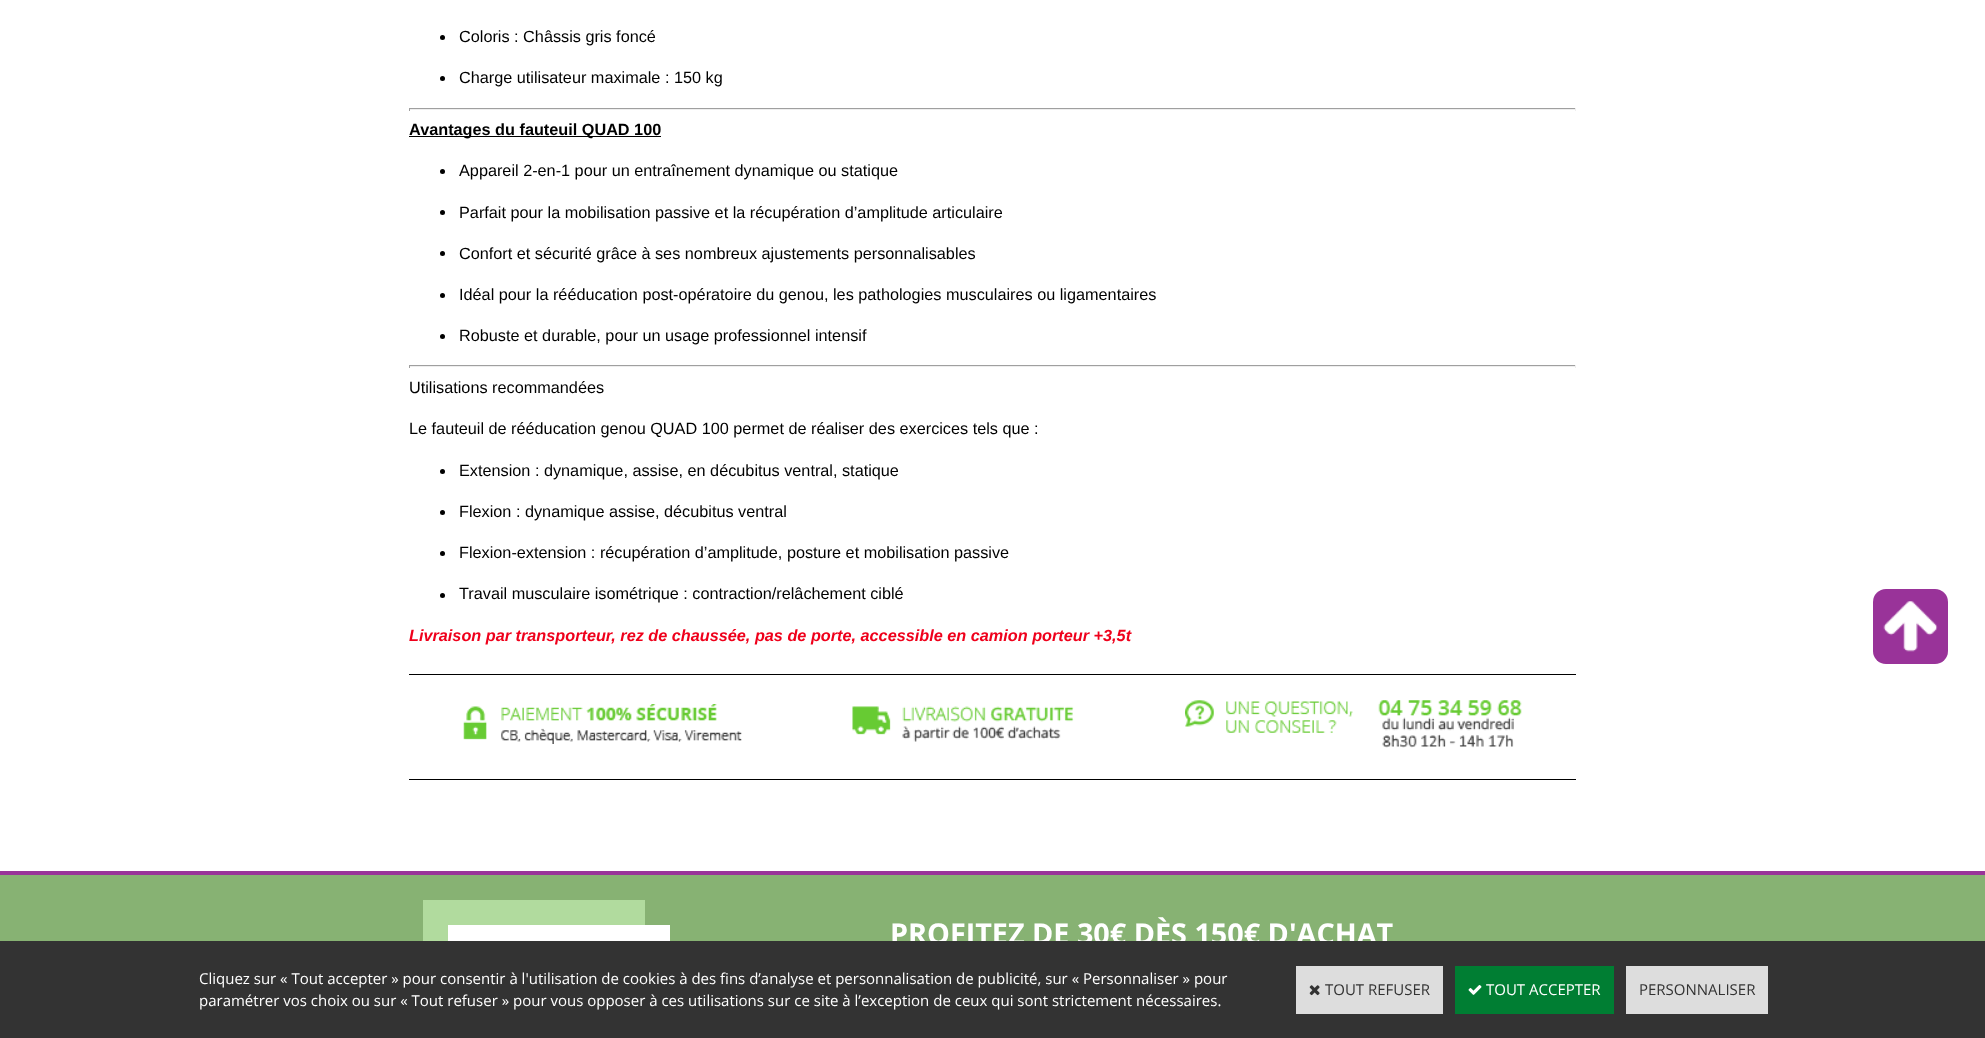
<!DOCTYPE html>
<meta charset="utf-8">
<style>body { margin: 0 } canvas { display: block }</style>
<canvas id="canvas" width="1985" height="1038"></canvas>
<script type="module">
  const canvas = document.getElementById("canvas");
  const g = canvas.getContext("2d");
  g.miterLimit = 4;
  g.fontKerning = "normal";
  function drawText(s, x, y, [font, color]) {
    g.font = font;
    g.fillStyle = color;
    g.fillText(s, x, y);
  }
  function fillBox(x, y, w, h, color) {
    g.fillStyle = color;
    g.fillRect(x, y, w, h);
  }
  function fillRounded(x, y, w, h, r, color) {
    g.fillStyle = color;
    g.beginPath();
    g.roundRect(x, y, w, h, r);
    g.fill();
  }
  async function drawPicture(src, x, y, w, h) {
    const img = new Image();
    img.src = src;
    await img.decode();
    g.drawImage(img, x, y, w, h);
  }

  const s1 = ["16.25px Liberation Sans", "#000000"];
  const s2 = ["bold 16.25px Liberation Sans", "#000000"];
  const s3 = ["italic bold 16.25px Liberation Sans", "#EF001B"];
  const s4 = ["bold 28.75px Open Sans", "#FFFFFF"];
  const s5 = ["15px Open Sans", "#FFFFFF"];
  const s6 = ["15px Open Sans", "#333333"];

  fillBox(0, 0, 1985, 1038, "#FFFFFF");
  g.fillStyle = "#000000";
  g.beginPath();
  g.arc(442.5, 37.5, 2.5, 0, Math.PI * 2);
  g.fill();
  drawText("Coloris : Châssis gris foncé", 459, 42, s1);
  g.beginPath();
  g.arc(442.5, 78.5, 2.5, 0, Math.PI * 2);
  g.fill();
  drawText("Charge utilisateur maximale : 150 kg", 459, 83, s1);
  fillBox(409, 108, 1167, 1, "#9F9F9F");
  fillBox(1575, 108, 1, 3, "#EEEEEE");
  fillBox(409, 109, 1167, 1, "#EEEEEE");
  fillBox(409, 108, 1, 3, "#9F9F9F");
  fillBox(409, 136, 252, 1, "#000000");
  drawText("Avantages du fauteuil QUAD 100", 409, 135, s2);
  g.beginPath();
  g.arc(442.5, 171.5, 2.5, 0, Math.PI * 2);
  g.fill();
  drawText("Appareil 2-en-1 pour un entraînement dynamique ou statique", 459, 176, s1);
  g.beginPath();
  g.arc(442.5, 212.5, 2.5, 0, Math.PI * 2);
  g.fill();
  drawText("Parfait pour la mobilisation passive et la récupération d’amplitude articulaire", 459, 218, s1);
  g.beginPath();
  g.arc(442.5, 253.5, 2.5, 0, Math.PI * 2);
  g.fill();
  drawText("Confort et sécurité grâce à ses nombreux ajustements personnalisables", 459, 259, s1);
  g.beginPath();
  g.arc(442.5, 295.5, 2.5, 0, Math.PI * 2);
  g.fill();
  drawText("Idéal pour la rééducation post-opératoire du genou, les pathologies musculaires ou ligamentaires", 459, 300, s1);
  g.beginPath();
  g.arc(442.5, 336.5, 2.5, 0, Math.PI * 2);
  g.fill();
  drawText("Robuste et durable, pour un usage professionnel intensif", 459, 341, s1);
  fillBox(409, 365, 1167, 1, "#9F9F9F");
  fillBox(1575, 365, 1, 3, "#EEEEEE");
  fillBox(409, 366, 1167, 1, "#EEEEEE");
  fillBox(409, 365, 1, 3, "#9F9F9F");
  drawText("Utilisations recommandées", 409, 393, s1);
  drawText("Le fauteuil de rééducation genou QUAD 100 permet de réaliser des exercices tels que :", 409, 434, s1);
  g.beginPath();
  g.arc(442.5, 471.5, 2.5, 0, Math.PI * 2);
  g.fill();
  drawText("Extension : dynamique, assise, en décubitus ventral, statique", 459, 476, s1);
  g.beginPath();
  g.arc(442.5, 512.5, 2.5, 0, Math.PI * 2);
  g.fill();
  drawText("Flexion : dynamique assise, décubitus ventral", 459, 517, s1);
  g.beginPath();
  g.arc(442.5, 553.5, 2.5, 0, Math.PI * 2);
  g.fill();
  drawText("Flexion-extension : récupération d’amplitude, posture et mobilisation passive", 459, 558, s1);
  g.beginPath();
  g.arc(442.5, 595.5, 2.5, 0, Math.PI * 2);
  g.fill();
  drawText("Travail musculaire isométrique : contraction/relâchement ciblé", 459, 599, s1);
  drawText("Livraison par transporteur, rez de chaussée, pas de porte, accessible en camion porteur +3,5t", 409, 641, s3);
  fillBox(409, 674, 1167, 1, "#000000");
  fillBox(409, 779, 1167, 1, "#000000");
  await drawPicture("pic1.png", 463, 704, 279, 40);
  await drawPicture("pic2.png", 852, 706, 222, 36);
  await drawPicture("pic3.png", 1185, 700, 337, 48);
  fillRounded(1873, 589, 75, 75, 13, "#993399");
  await drawPicture("pic4.png", 1883, 601, 55, 51);
  fillBox(0, 871, 1985, 4, "#993399");
  fillBox(0, 875, 1985, 66, "#87B273");
  fillBox(423, 900, 222, 41, "#B1DB9E");
  fillBox(448, 925, 222, 16, "#FFFFFF");
  drawText("PROFITEZ DE 30€ DÈS 150€ D'ACHAT", 890, 944, s4);
  fillBox(0, 941, 1985, 97, "#333333");
  drawText("Cliquez sur « Tout accepter » pour consentir à l'utilisation de cookies à des fins d’analyse et personnalisation de publicité, sur « Personnaliser » pour", 199, 984, s5);
  drawText("paramétrer vos choix ou sur « Tout refuser » pour vous opposer à ces utilisations sur ce site à l’exception de ceux qui sont strictement nécessaires.", 199, 1006, s5);
  fillBox(1296, 966, 147, 48, "#DDDDDD");
  await drawPicture("pic5.png", 1309, 985, 11, 11);
  drawText("TOUT REFUSER", 1325, 995, s6);
  fillBox(1455, 966, 159, 48, "#007E33");
  await drawPicture("pic6.png", 1468, 985, 14, 10);
  drawText("TOUT ACCEPTER", 1486, 995, s5);
  fillBox(1626, 966, 142, 48, "#DDDDDD");
  drawText("PERSONNALISER", 1639, 995, s6);
</script>
